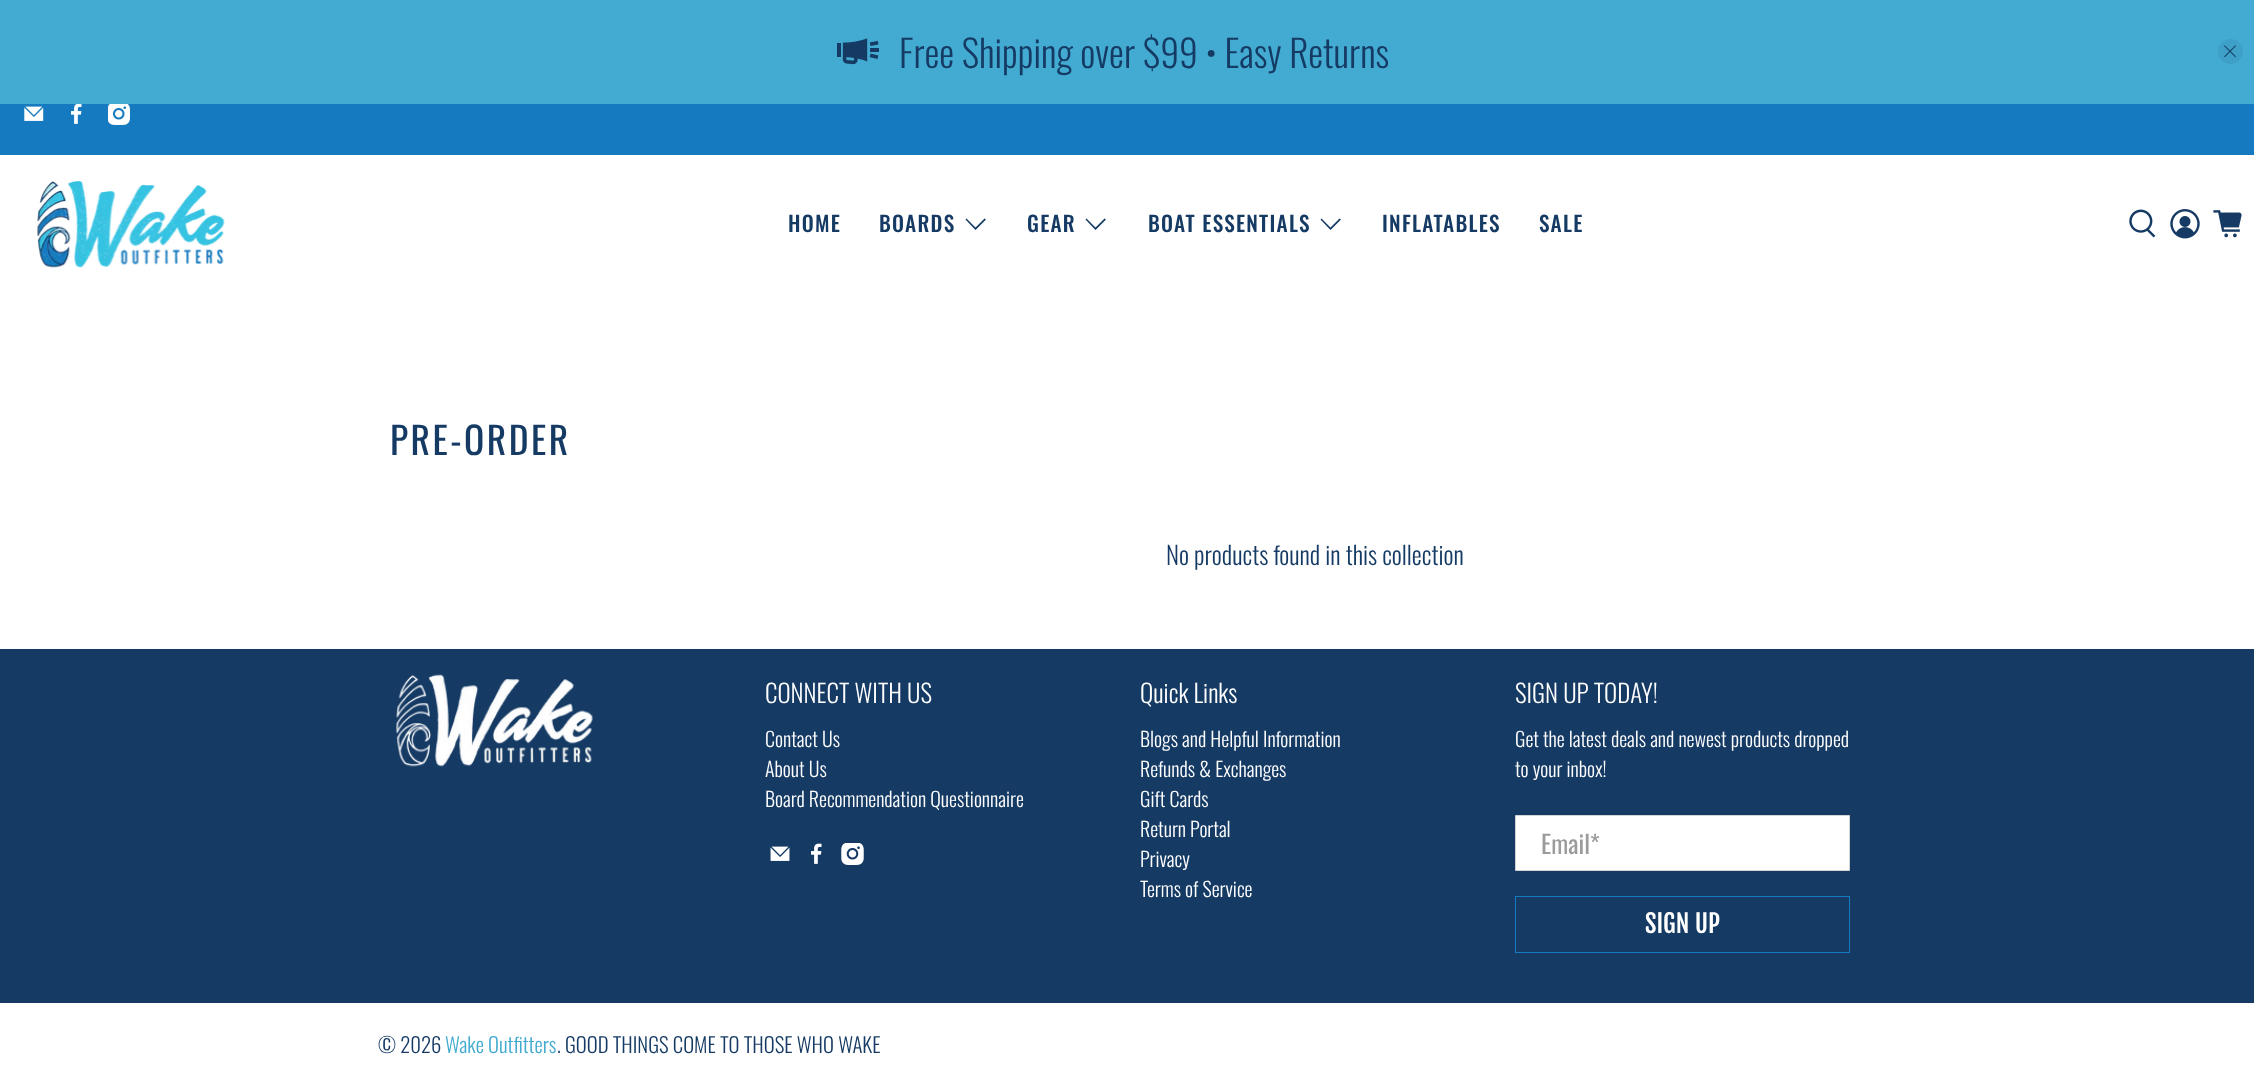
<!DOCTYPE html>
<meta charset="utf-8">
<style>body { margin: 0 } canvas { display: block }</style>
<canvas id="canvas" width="2254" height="1084"></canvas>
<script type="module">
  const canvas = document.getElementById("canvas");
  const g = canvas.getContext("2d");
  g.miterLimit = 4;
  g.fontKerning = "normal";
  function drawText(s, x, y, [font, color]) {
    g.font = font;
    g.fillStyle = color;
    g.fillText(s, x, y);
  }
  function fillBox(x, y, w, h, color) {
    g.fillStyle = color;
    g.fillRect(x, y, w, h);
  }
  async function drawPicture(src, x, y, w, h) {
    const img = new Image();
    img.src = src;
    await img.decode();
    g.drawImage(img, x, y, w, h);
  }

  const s1 = ["300 37.5px Oswald", "#153A64"];
  const s2 = ["500 21.25px Oswald", "#153A64"];
  const s3 = ["37.5px Oswald", "#153A64"];
  const s4 = ["300 25px Oswald", "#153A64"];
  const s5 = ["300 25px Oswald", "#FFFFFF"];
  const s6 = ["300 20px Oswald", "#FFFFFF"];
  const s7 = ["25px Oswald", "#9B9B9B"];
  const s8 = ["25px Fjalla One", "#FFFFFF"];
  const s9 = ["300 20.8px Oswald", "#153A64"];
  const s10 = ["300 20.8px Oswald", "#43ABD1"];

  fillBox(0, 0, 2254, 1084, "#FFFFFF");
  fillBox(0, 0, 2254, 104, "#43ABD1");
  await drawPicture("pic1.png", 837, 38, 42, 27);
  drawText("Free Shipping over $99 • Easy Returns", 899, 68, s1);
  g.fillStyle = "#3EA0C6";
  g.beginPath();
  g.arc(2230.5, 51.5, 12.5, 0, Math.PI * 2);
  g.fill();
  await drawPicture("pic2.png", 2224, 45, 12, 13);
  fillBox(0, 104, 2254, 51, "#157ABF");
  await drawPicture("pic3.png", 24, 106, 20, 15);
  await drawPicture("pic4.png", 71, 104, 11, 20);
  await drawPicture("pic5.png", 108, 104, 22, 21);
  await drawPicture("pic6.png", 37, 181, 188, 87);
  g.letterSpacing = "1.25px";
  drawText("HOME", 788, 232, s2);
  drawText("BOARDS", 879, 232, s2);
  g.beginPath();
  g.moveTo(975.5, 230);
  g.lineTo(965.5, 219.5);
  g.lineTo(966.5, 218.5);
  g.lineTo(975.5, 227.5);
  g.lineTo(984.5, 218.5);
  g.lineTo(986, 219.5);
  g.closePath();
  g.fill();
  drawText("GEAR", 1027, 232, s2);
  g.beginPath();
  g.moveTo(1095.5, 230);
  g.lineTo(1085.5, 219.5);
  g.lineTo(1086.5, 218.5);
  g.lineTo(1095.5, 227.5);
  g.lineTo(1104.5, 218.5);
  g.lineTo(1106, 219.5);
  g.closePath();
  g.fill();
  drawText("BOAT ESSENTIALS", 1148, 232, s2);
  g.beginPath();
  g.moveTo(1330.5, 230);
  g.lineTo(1320.5, 219.5);
  g.lineTo(1321.5, 218.5);
  g.lineTo(1330.5, 227.5);
  g.lineTo(1339.5, 218.5);
  g.lineTo(1341, 219.5);
  g.closePath();
  g.fill();
  drawText("INFLATABLES", 1382, 232, s2);
  drawText("SALE", 1539, 232, s2);
  await drawPicture("pic7.png", 2129, 209, 27, 29);
  await drawPicture("pic8.png", 2170, 209, 30, 30);
  await drawPicture("pic9.png", 2213, 210, 29, 28);
  g.letterSpacing = "2.5px";
  drawText("PRE-ORDER", 390, 455, s3);
  g.letterSpacing = "0px";
  drawText("No products found in this collection", 1166, 565, s4);
  fillBox(0, 649, 2254, 354, "#153A64");
  await drawPicture("pic10.png", 396, 674, 197, 93);
  drawText("CONNECT WITH US", 765, 703, s5);
  drawText("Contact Us", 765, 747, s6);
  drawText("About Us", 765, 777, s6);
  drawText("Board Recommendation Questionnaire", 765, 807, s6);
  await drawPicture("pic11.png", 770, 846, 20, 15);
  await drawPicture("pic12.png", 811, 843, 11, 21);
  await drawPicture("pic13.png", 841, 843, 23, 22);
  drawText("Quick Links", 1140, 703, s5);
  drawText("Blogs and Helpful Information", 1140, 747, s6);
  drawText("Refunds & Exchanges", 1140, 777, s6);
  drawText("Gift Cards", 1140, 807, s6);
  drawText("Return Portal", 1140, 837, s6);
  drawText("Privacy", 1140, 867, s6);
  drawText("Terms of Service", 1140, 897, s6);
  drawText("SIGN UP TODAY!", 1515, 703, s5);
  drawText("Get the latest deals and newest products dropped", 1515, 747, s6);
  drawText("to your inbox!", 1515, 777, s6);
  g.beginPath();
  g.rect(1515.5, 815.5, 334, 55);
  g.fill();
  g.strokeStyle = "#D3D3D3";
  g.stroke();
  drawText("Email*", 1541, 854, s7);
  g.strokeStyle = "#157ABF";
  g.strokeRect(1515.5, 896.5, 334, 56);
  drawText("SIGN UP", 1645, 933, s8);
  drawText("© 2026", 378, 1053, s9);
  drawText("Wake Outfitters", 445, 1053, s10);
  drawText(". GOOD THINGS COME TO THOSE WHO WAKE", 557, 1053, s9);
</script>
